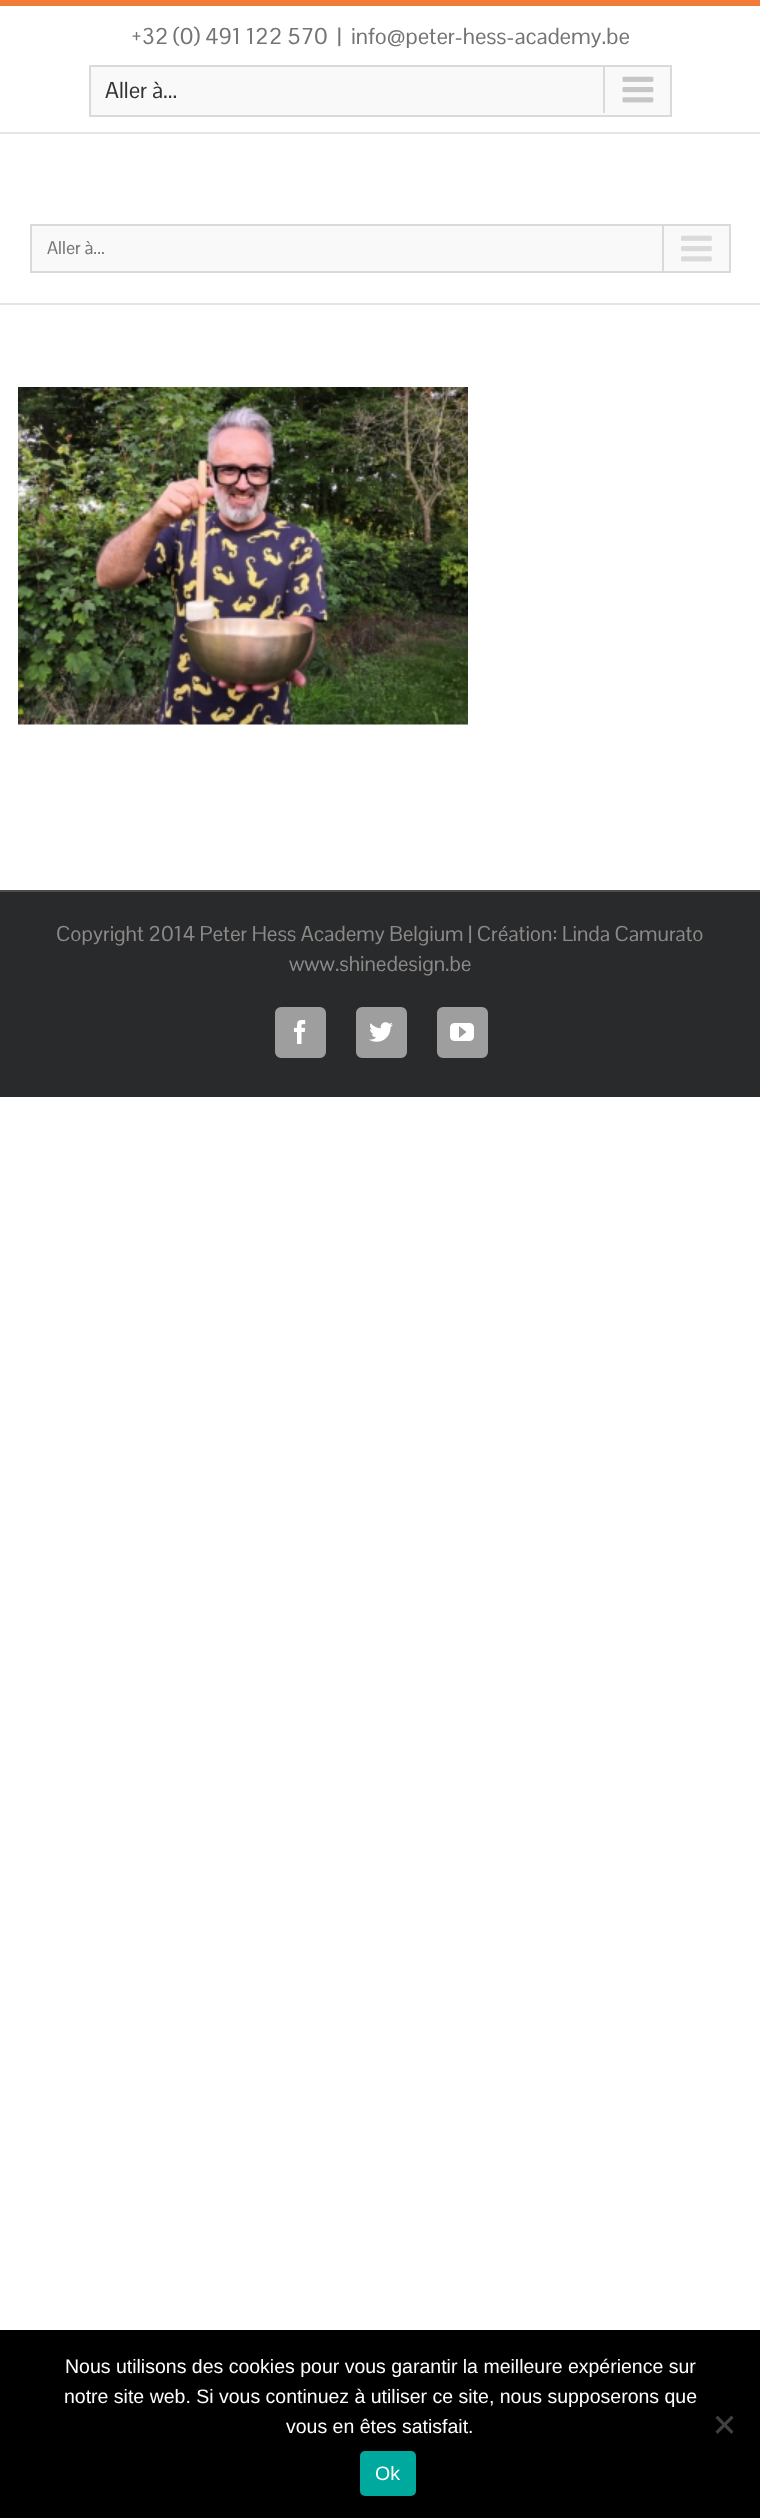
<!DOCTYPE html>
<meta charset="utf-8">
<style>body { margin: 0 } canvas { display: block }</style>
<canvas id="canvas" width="760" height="2518"></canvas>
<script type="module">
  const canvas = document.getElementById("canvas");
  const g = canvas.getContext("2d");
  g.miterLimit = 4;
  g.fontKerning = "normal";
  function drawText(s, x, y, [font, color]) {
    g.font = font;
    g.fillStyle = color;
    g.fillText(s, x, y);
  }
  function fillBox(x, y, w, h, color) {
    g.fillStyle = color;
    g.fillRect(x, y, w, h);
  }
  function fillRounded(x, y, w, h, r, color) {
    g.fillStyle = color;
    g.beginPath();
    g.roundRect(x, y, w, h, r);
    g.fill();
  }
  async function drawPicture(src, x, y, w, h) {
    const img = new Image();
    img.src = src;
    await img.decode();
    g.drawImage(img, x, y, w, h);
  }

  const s1 = ["22.5px Pontano Sans", "#747474"];
  const s2 = ["22.5px Pontano Sans", "#333333"];
  const s3 = ["18px Pontano Sans", "#747474"];
  const s4 = ["21px Pontano Sans", "#8C8989"];
  const s5 = ["19.5px Liberation Sans", "#FFFFFF"];

  fillBox(0, 0, 760, 2518, "#FFFFFF");
  fillBox(0, 0, 760, 6, "#F27C37");
  fillBox(0, 132, 760, 2, "#E5E5E5");
  drawText("+32 (0) 491 122 570", 131, 44, s1);
  drawText("|", 337, 44, s1);
  drawText("info@peter-hess-academy.be", 351, 44, s1);
  g.fillStyle = "#F9F9F9";
  g.beginPath();
  g.rect(90, 66, 581, 50);
  g.fill();
  g.strokeStyle = "#DADADA";
  g.lineWidth = 2;
  g.stroke();
  drawText("Aller à...", 105, 98, s2);
  fillBox(603, 66, 2, 47, "#DADADA");
  await drawPicture("pic1.png", 622, 76, 32, 27);
  fillBox(0, 303, 760, 2, "#E5E5E5");
  g.fillStyle = "#F9F9F9";
  g.beginPath();
  g.rect(31, 225, 699, 47);
  g.fill();
  g.stroke();
  drawText("Aller à...", 47, 254, s3);
  fillBox(662, 225, 2, 47, "#DADADA");
  await drawPicture("pic2.png", 681, 235, 31, 27);
  await drawPicture("pic3.png", 18, 387, 450, 338);
  fillBox(0, 892, 760, 205, "#282A2B");
  fillBox(0, 890, 760, 2, "#4B4C4D");
  drawText("Copyright 2014 Peter Hess Academy Belgium | Création: Linda Camurato", 56, 941, s4);
  drawText("www.shinedesign.be", 289, 971, s4);
  g.fillStyle = "#9E9E9E";
  g.beginPath();
  g.roundRect(276, 1008, 49, 49, 5);
  g.fill();
  g.strokeStyle = "#9E9E9E";
  g.stroke();
  await drawPicture("pic4.png", 294, 1020, 12, 24);
  g.beginPath();
  g.roundRect(357, 1008, 49, 49, 5);
  g.fill();
  g.stroke();
  await drawPicture("pic5.png", 369, 1022, 24, 20);
  g.beginPath();
  g.roundRect(438, 1008, 49, 49, 5);
  g.fill();
  g.stroke();
  await drawPicture("pic6.png", 450, 1023, 24, 18);
  fillBox(0, 2330, 760, 188, "#000000");
  drawText("Nous utilisons des cookies pour vous garantir la meilleure expérience sur", 65, 2373, s5);
  drawText("notre site web. Si vous continuez à utiliser ce site, nous supposerons que", 64, 2403, s5);
  drawText("vous en êtes satisfait.", 286, 2433, s5);
  g.fillStyle = "#404040";
  g.beginPath();
  g.moveTo(731.5, 2415.5);
  g.lineTo(733.5, 2418);
  g.lineTo(717.5, 2434);
  g.lineTo(715.5, 2431.5);
  g.closePath();
  g.fill();
  g.beginPath();
  g.moveTo(715.5, 2418);
  g.lineTo(717.5, 2415.5);
  g.lineTo(733.5, 2431.5);
  g.lineTo(731.5, 2434);
  g.closePath();
  g.fill();
  fillRounded(360, 2451, 56, 45, 5, "#00A99D");
  drawText("Ok", 375, 2480, s5);
</script>
